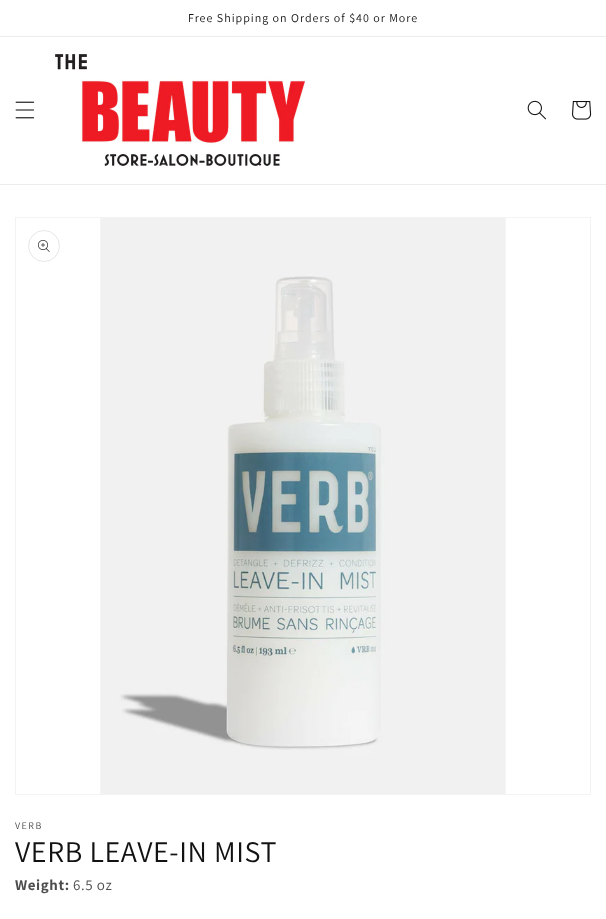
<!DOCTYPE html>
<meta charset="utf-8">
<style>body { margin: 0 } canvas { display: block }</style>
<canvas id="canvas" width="606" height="919"></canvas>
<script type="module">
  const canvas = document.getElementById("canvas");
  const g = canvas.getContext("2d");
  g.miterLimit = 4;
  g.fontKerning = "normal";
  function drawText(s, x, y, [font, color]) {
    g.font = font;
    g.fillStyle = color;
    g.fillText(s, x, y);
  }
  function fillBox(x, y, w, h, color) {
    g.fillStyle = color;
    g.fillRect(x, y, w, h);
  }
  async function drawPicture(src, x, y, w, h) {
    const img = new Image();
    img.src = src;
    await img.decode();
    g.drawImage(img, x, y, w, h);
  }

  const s1 = ["12px Assistant", "#121212"];
  const s2 = ["10px Assistant", "#4D4D4D"];
  const s3 = ["30px Assistant", "#121212"];
  const s4 = ["bold 15px Assistant", "#4D4D4D"];
  const s5 = ["15px Assistant", "#4D4D4D"];

  fillBox(0, 0, 606, 919, "#FFFFFF");
  fillBox(0, 36, 606, 1, "#ECECEC");
  g.letterSpacing = "1px";
  drawText("Free Shipping on Orders of $40 or More", 188, 22, s1);
  fillBox(0, 184, 606, 1, "#ECECEC");
  await drawPicture("pic1.png", 15, 101, 20, 18);
  await drawPicture("pic2.png", 55, 54, 250, 112);
  await drawPicture("pic3.png", 527, 100, 19, 20);
  await drawPicture("pic4.png", 572, 101, 20, 19);
  g.strokeStyle = "#F3F3F3";
  g.strokeRect(15.5, 217.5, 575, 577);
  await drawPicture("pic5.png", 100, 218, 406, 576);
  g.beginPath();
  g.arc(44, 246, 15.5, 0, Math.PI * 2);
  g.strokeStyle = "#E7E7E7";
  g.stroke();
  await drawPicture("pic6.png", 38, 240, 12, 12);
  g.letterSpacing = "1.5px";
  drawText("VERB", 15, 829, s2);
  g.letterSpacing = "0.6px";
  drawText("VERB LEAVE-IN MIST", 15, 862, s3);
  drawText("Weight:", 15, 890, s4);
  drawText("6.5 oz", 73, 890, s5);
</script>
